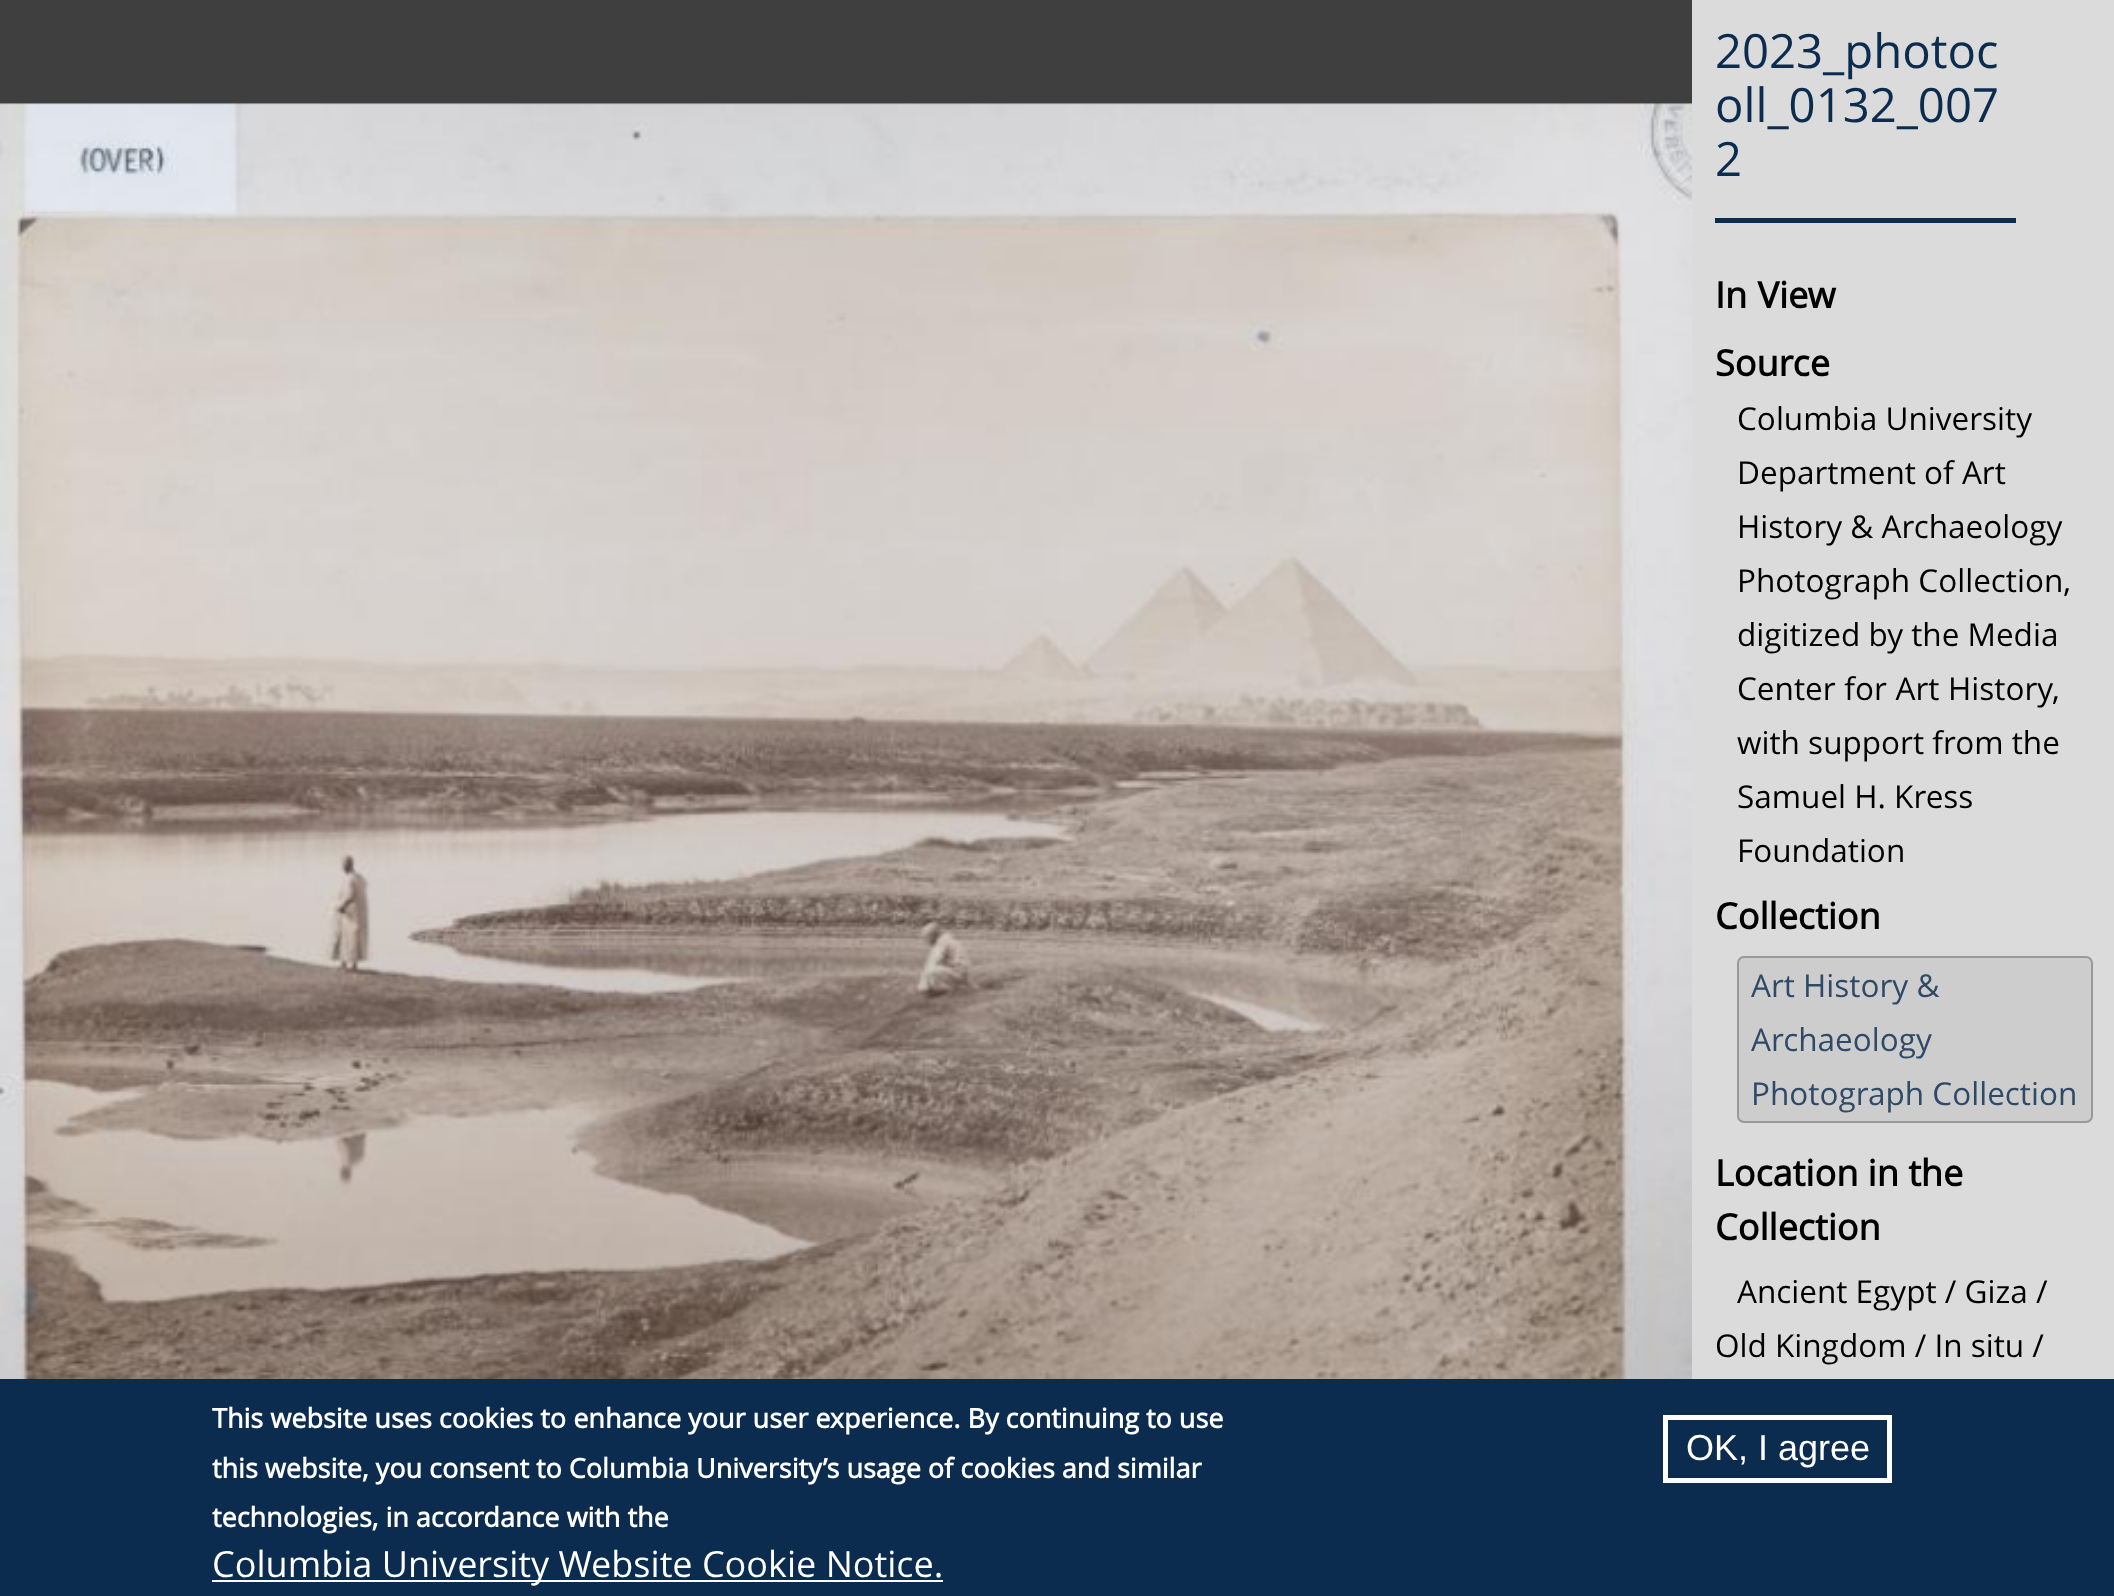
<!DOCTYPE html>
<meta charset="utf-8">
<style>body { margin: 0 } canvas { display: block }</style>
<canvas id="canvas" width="2114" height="1596"></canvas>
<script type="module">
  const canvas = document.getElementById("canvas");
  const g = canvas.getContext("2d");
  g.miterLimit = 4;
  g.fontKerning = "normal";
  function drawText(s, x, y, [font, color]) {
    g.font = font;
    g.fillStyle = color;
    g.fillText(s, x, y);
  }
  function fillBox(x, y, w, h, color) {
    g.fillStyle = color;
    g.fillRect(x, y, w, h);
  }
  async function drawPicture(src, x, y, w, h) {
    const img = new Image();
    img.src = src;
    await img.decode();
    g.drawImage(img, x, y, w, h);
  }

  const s1 = ["47.25px Open Sans", "#0B2C4F"];
  const s2 = ["bold 36px Open Sans", "#000000"];
  const s3 = ["31.5px Open Sans", "#000000"];
  const s4 = ["31.5px Open Sans", "#2E4A68"];
  const s5 = ["bold 27px Open Sans", "#FFFFFF"];
  const s6 = ["36px Open Sans", "#FFFFFF"];
  const s7 = ["36px Liberation Sans", "#FFFFFF"];

  fillBox(0, 0, 2114, 1596, "#DBDBDB");
  fillBox(0, 0, 1692, 105, "#3F3F3F");
  await drawPicture("pic1.png", 0, 103, 1692, 1276);
  fillBox(1715, 218, 301, 5, "#0B2C4F");
  drawText("2023_photoc", 1715, 68, s1);
  drawText("oll_0132_007", 1715, 122, s1);
  drawText("2", 1715, 176, s1);
  g.wordSpacing = "1px";
  drawText("In View", 1715, 308, s2);
  g.wordSpacing = "0px";
  drawText("Source", 1715, 376, s2);
  drawText("Columbia University", 1737, 430, s3);
  drawText("Department of Art", 1737, 484, s3);
  drawText("History & Archaeology", 1737, 538, s3);
  drawText("Photograph Collection,", 1737, 592, s3);
  drawText("digitized by the Media", 1737, 646, s3);
  g.wordSpacing = "0.5px";
  drawText("Center for Art History,", 1737, 700, s3);
  g.wordSpacing = "0px";
  drawText("with support from the", 1737, 754, s3);
  drawText("Samuel H. Kress", 1737, 808, s3);
  drawText("Foundation", 1737, 862, s3);
  drawText("Collection", 1715, 929, s2);
  g.fillStyle = "#CDCDCD";
  g.beginPath();
  g.roundRect(1738, 957, 354, 165, 6);
  g.fill();
  g.strokeStyle = "#999999";
  g.lineWidth = 2;
  g.stroke();
  drawText("Art History &", 1751, 997, s4);
  drawText("Archaeology", 1751, 1051, s4);
  drawText("Photograph Collection", 1751, 1105, s4);
  drawText("Location in the", 1715, 1186, s2);
  drawText("Collection", 1715, 1240, s2);
  drawText("Ancient Egypt / Giza /", 1737, 1303, s3);
  drawText("Old Kingdom / In situ /", 1715, 1357, s3);
  fillBox(0, 1379, 2114, 217, "#0B2C4F");
  drawText("This website uses cookies to enhance your user experience. By continuing to use", 212, 1428, s5);
  drawText("this website, you consent to Columbia University’s usage of cookies and similar", 212, 1478, s5);
  drawText("technologies, in accordance with the", 212, 1527, s5);
  fillBox(212, 1580, 731, 2, "#FFFFFF");
  drawText("Columbia University Website Cookie Notice.", 212, 1577, s6);
  g.strokeStyle = "#FFFFFF";
  g.lineWidth = 5;
  g.strokeRect(1665.5, 1417.5, 224, 63);
  drawText("OK, I agree", 1686, 1460, s7);
</script>
